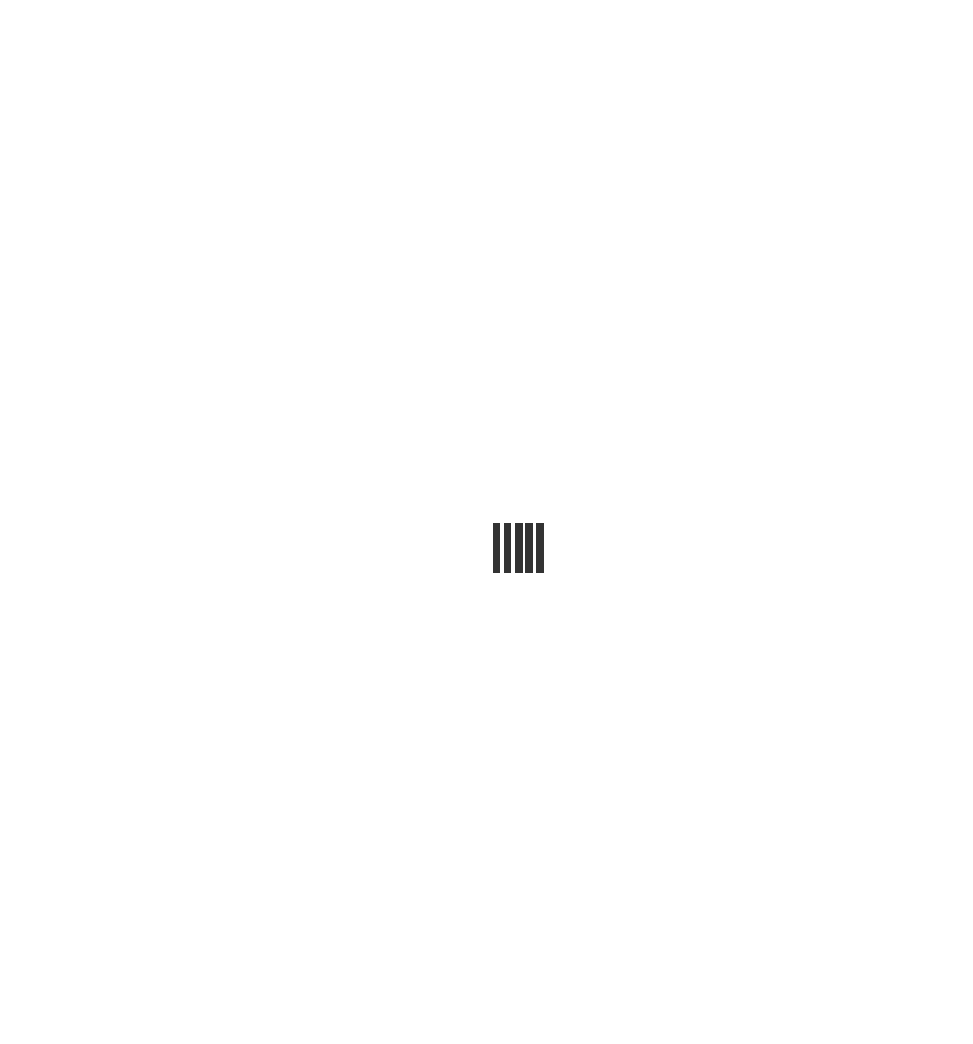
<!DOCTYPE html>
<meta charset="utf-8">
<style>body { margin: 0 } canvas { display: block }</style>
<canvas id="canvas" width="973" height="1044"></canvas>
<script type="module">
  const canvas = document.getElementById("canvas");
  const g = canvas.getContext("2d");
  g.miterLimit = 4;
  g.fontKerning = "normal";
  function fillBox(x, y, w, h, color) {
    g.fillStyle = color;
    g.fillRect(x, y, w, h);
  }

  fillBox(0, 0, 973, 1044, "#FFFFFF");
  fillBox(493, 523, 7, 50, "#333333");
  fillBox(504, 523, 7, 50, "#333333");
  fillBox(515, 523, 8, 50, "#333333");
  fillBox(525, 523, 8, 50, "#333333");
  fillBox(536, 523, 8, 50, "#333333");
</script>
